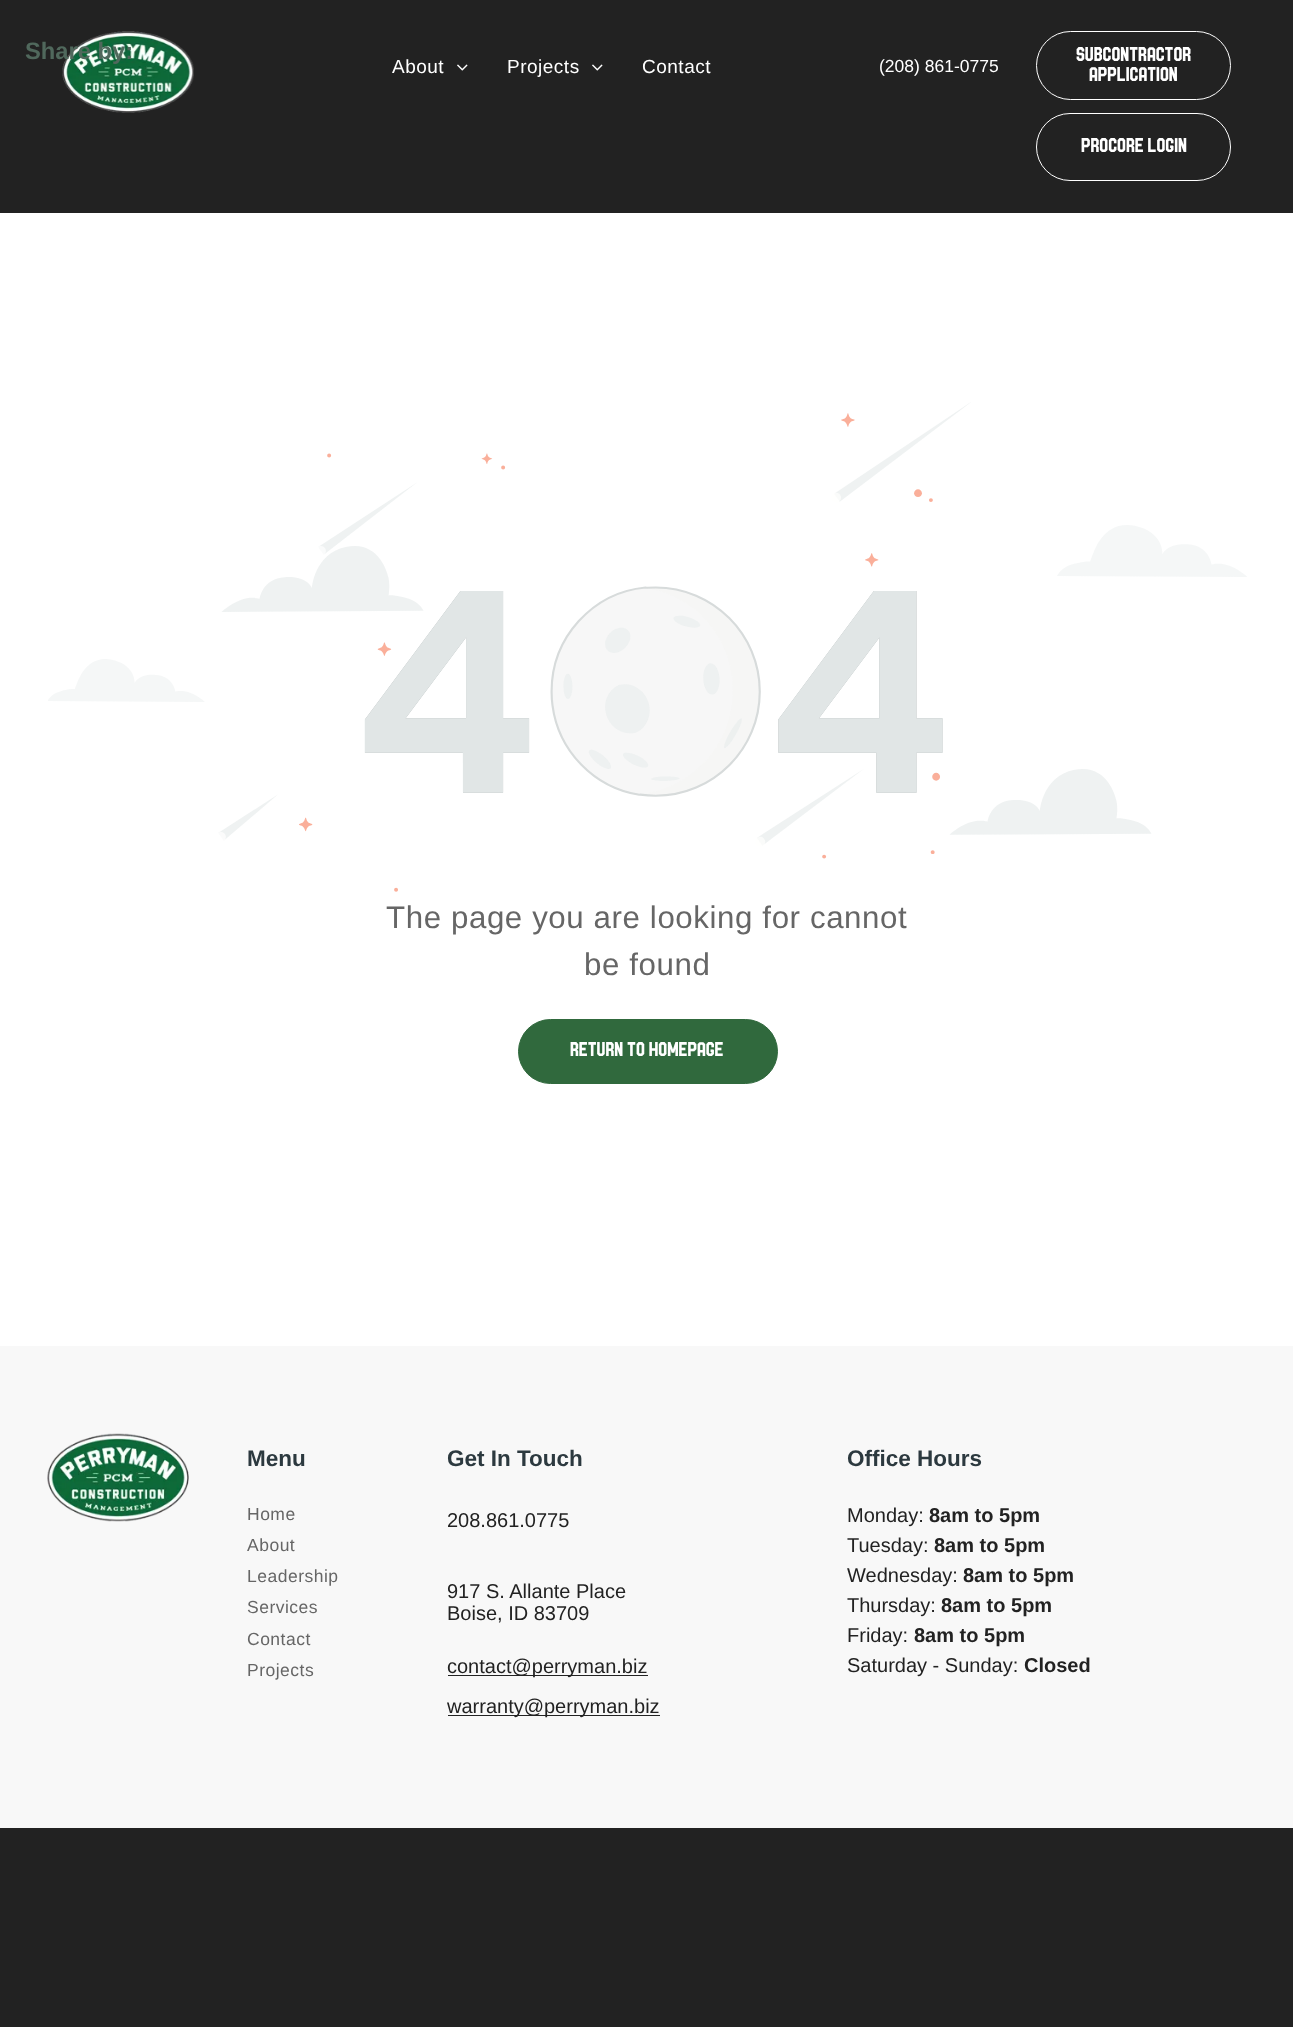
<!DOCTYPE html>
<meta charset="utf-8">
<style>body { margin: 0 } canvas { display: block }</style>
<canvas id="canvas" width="1293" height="2027"></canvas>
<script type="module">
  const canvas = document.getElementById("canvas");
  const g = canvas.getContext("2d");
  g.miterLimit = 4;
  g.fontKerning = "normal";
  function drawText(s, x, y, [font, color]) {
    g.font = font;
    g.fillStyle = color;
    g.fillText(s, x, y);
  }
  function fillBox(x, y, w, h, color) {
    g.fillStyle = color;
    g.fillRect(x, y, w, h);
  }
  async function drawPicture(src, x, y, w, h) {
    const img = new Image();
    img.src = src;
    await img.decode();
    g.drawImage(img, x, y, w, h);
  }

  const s1 = ["bold 23.75px Liberation Sans", "#50685C"];
  const s2 = ["19px Liberation Sans", "#FFFFFF"];
  const s3 = ["17.5px Liberation Sans", "#FFFFFF"];
  const s4 = ["20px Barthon", "#FFFFFF"];
  const s5 = ["31.25px Liberation Sans", "#666666"];
  const s6 = ["bold 22.5px Liberation Sans", "#2C393F"];
  const s7 = ["17.5px Liberation Sans", "#666666"];
  const s8 = ["20px Liberation Sans", "#222222"];
  const s9 = ["bold 20px Liberation Sans", "#222222"];

  fillBox(0, 0, 1293, 2027, "#222222");
  await drawPicture("pic1.png", 62, 31, 132, 82);
  drawText("Share by:", 25, 59, s1);
  g.letterSpacing = "0.5px";
  drawText("About", 392, 73, s2);
  await drawPicture("pic2.png", 457, 64, 11, 7);
  drawText("Projects", 507, 73, s2);
  await drawPicture("pic2.png", 592, 64, 11, 7);
  drawText("Contact", 642, 73, s2);
  g.letterSpacing = "0px";
  drawText("(208) 861-0775", 879, 72, s3);
  g.beginPath();
  g.roundRect(1036.5, 31.5, 194, 68, 34);
  g.strokeStyle = "#FFFFFF";
  g.stroke();
  drawText("Subcontractor", 1076, 61, s4);
  drawText("Application", 1089, 81, s4);
  g.beginPath();
  g.roundRect(1036.5, 113.5, 194, 67, 33.5);
  g.stroke();
  drawText("ProCore Login", 1081, 152, s4);
  fillBox(0, 213, 1293, 1133, "#FFFFFF");
  await drawPicture("pic3.png", 48, 402, 1199, 490);
  g.letterSpacing = "0.6px";
  drawText("The page you are looking for cannot", 386, 928, s5);
  drawText("be found", 584, 975, s5);
  g.fillStyle = "#30693D";
  g.beginPath();
  g.roundRect(518.5, 1019.5, 259, 64, 32);
  g.fill();
  g.strokeStyle = "#30693D";
  g.stroke();
  g.letterSpacing = "0px";
  drawText("Return to Homepage", 570, 1056, s4);
  fillBox(0, 1346, 1293, 482, "#F8F8F8");
  await drawPicture("pic4.png", 47, 1433, 142, 89);
  drawText("Menu", 247, 1466, s6);
  g.letterSpacing = "0.5px";
  drawText("Home", 247, 1520, s7);
  drawText("About", 247, 1551, s7);
  drawText("Leadership", 247, 1582, s7);
  drawText("Services", 247, 1613, s7);
  drawText("Contact", 247, 1645, s7);
  drawText("Projects", 247, 1676, s7);
  g.letterSpacing = "0px";
  drawText("Get In Touch", 447, 1466, s6);
  drawText("208.861.0775", 447, 1527, s8);
  drawText("917 S. Allante Place", 447, 1598, s8);
  drawText("Boise, ID 83709", 447, 1620, s8);
  fillBox(448, 1675, 200, 1, "#222222");
  drawText("contact@perryman.biz", 447, 1673, s8);
  fillBox(448, 1715, 212, 1, "#222222");
  drawText("warranty@perryman.biz", 447, 1713, s8);
  drawText("Office Hours", 847, 1466, s6);
  drawText("Monday:", 847, 1522, s8);
  drawText("8am to 5pm", 929, 1522, s9);
  drawText("Tuesday:", 847, 1552, s8);
  drawText("8am to 5pm", 934, 1552, s9);
  drawText("Wednesday:", 847, 1582, s8);
  drawText("8am to 5pm", 963, 1582, s9);
  drawText("Thursday:", 847, 1612, s8);
  drawText("8am to 5pm", 941, 1612, s9);
  drawText("Friday:", 847, 1642, s8);
  drawText("8am to 5pm", 914, 1642, s9);
  drawText("Saturday - Sunday:", 847, 1672, s8);
  drawText("Closed", 1024, 1672, s9);
</script>
